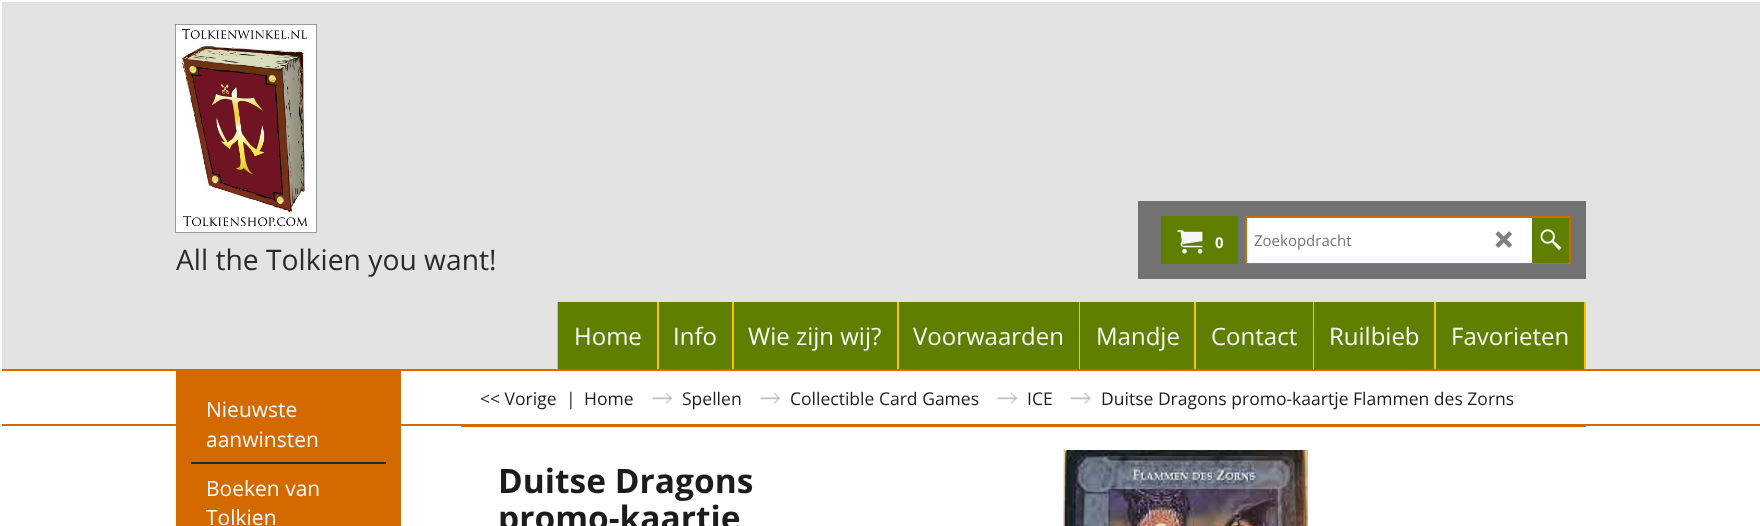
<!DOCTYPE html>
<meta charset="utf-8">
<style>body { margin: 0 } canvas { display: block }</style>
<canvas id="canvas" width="1760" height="526"></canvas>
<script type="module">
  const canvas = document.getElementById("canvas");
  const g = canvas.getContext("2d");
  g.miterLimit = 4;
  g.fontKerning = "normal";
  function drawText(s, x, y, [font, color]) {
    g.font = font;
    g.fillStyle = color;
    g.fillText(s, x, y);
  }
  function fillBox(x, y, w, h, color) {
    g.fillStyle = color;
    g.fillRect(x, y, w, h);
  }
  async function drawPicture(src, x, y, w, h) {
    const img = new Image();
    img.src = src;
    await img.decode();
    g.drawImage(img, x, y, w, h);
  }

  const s1 = ["bold 15px Open Sans", "#F7F7F7"];
  const s2 = ["15px Open Sans", "#757575"];
  const s3 = ["28.25px Open Sans", "#2A2A2A"];
  const s4 = ["24px Open Sans", "#F7F7F7"];
  const s5 = ["21px Open Sans", "#F7F7F7"];
  const s6 = ["17.55px Open Sans", "#1C1C1C"];
  const s7 = ["bold 33.5px Open Sans", "#1C1C1C"];

  fillBox(0, 0, 1760, 526, "#FFFFFF");
  fillBox(2, 2, 1758, 367, "#E3E3E3");
  fillBox(1138, 201, 448, 78, "#727272");
  fillBox(1161, 216, 77, 48, "#5F7F00");
  await drawPicture("pic1.png", 1177, 230, 26, 24);
  drawText("0", 1215, 248, s1);
  fillBox(1245, 216, 326, 48, "#D46900");
  fillBox(1247, 218, 285, 45, "#FFFFFF");
  drawText("Zoekopdracht", 1254, 246, s2);
  await drawPicture("pic2.png", 1495, 231, 17, 17);
  fillBox(1532, 218, 37, 45, "#5F7F00");
  await drawPicture("pic3.png", 1540, 229, 22, 22);
  await drawPicture("pic4.png", 175, 24, 142, 209);
  drawText("All the Tolkien you want!", 176, 270, s3);
  fillBox(659, 302, 925, 67, "#5F7F00");
  fillBox(557, 302, 1, 67, "#FFBF00");
  fillBox(558, 302, 99, 67, "#5F7F00");
  drawText("Home", 574, 345, s4);
  fillBox(657, 302, 2, 67, "#FFBF00");
  drawText("Info", 673, 345, s4);
  fillBox(732, 302, 2, 67, "#FFBF00");
  drawText("Wie zijn wij?", 748, 345, s4);
  fillBox(897, 302, 2, 67, "#FFBF00");
  drawText("Voorwaarden", 913, 345, s4);
  fillBox(1079, 302, 1, 67, "#FFBF00");
  drawText("Mandje", 1096, 345, s4);
  fillBox(1194, 302, 2, 67, "#FFBF00");
  drawText("Contact", 1211, 345, s4);
  fillBox(1313, 302, 1, 67, "#FFBF00");
  drawText("Ruilbieb", 1329, 345, s4);
  fillBox(1434, 302, 2, 67, "#FFBF00");
  drawText("Favorieten", 1451, 345, s4);
  fillBox(1584, 302, 2, 67, "#FFBF00");
  fillBox(176, 371, 225, 155, "#D46900");
  fillBox(191, 462, 195, 2, "#2A2A2A");
  drawText("Nieuwste", 206, 417, s5);
  drawText("aanwinsten", 206, 447, s5);
  drawText("Boeken van", 206, 496, s5);
  drawText("Tolkien", 206, 525, s5);
  fillBox(461, 426, 1125, 1, "#D46900");
  g.save();
  g.beginPath();
  g.rect(2, 2, 1758, 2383);
  g.clip();
  g.strokeStyle = "#D46900";
  g.lineWidth = 2;
  g.strokeRect(-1, 370, 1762, 55);
  g.restore();
  drawText("<< Vorige", 480, 405, s6);
  drawText("|", 566, 405, s6);
  drawText("Home", 584, 405, s6);
  await drawPicture("pic5.png", 652, 393, 20, 11);
  drawText("Spellen", 682, 405, s6);
  await drawPicture("pic6.png", 760, 393, 20, 11);
  drawText("Collectible Card Games", 790, 405, s6);
  await drawPicture("pic6.png", 997, 393, 20, 11);
  drawText("ICE", 1027, 405, s6);
  await drawPicture("pic7.png", 1071, 393, 20, 11);
  drawText("Duitse Dragons promo-kaartje Flammen des Zorns", 1101, 405, s6);
  drawText("Duitse Dragons", 498, 493, s7);
  drawText("promo-kaartje", 498, 530, s7);
  await drawPicture("pic8.png", 1063, 450, 245, 76);
</script>
